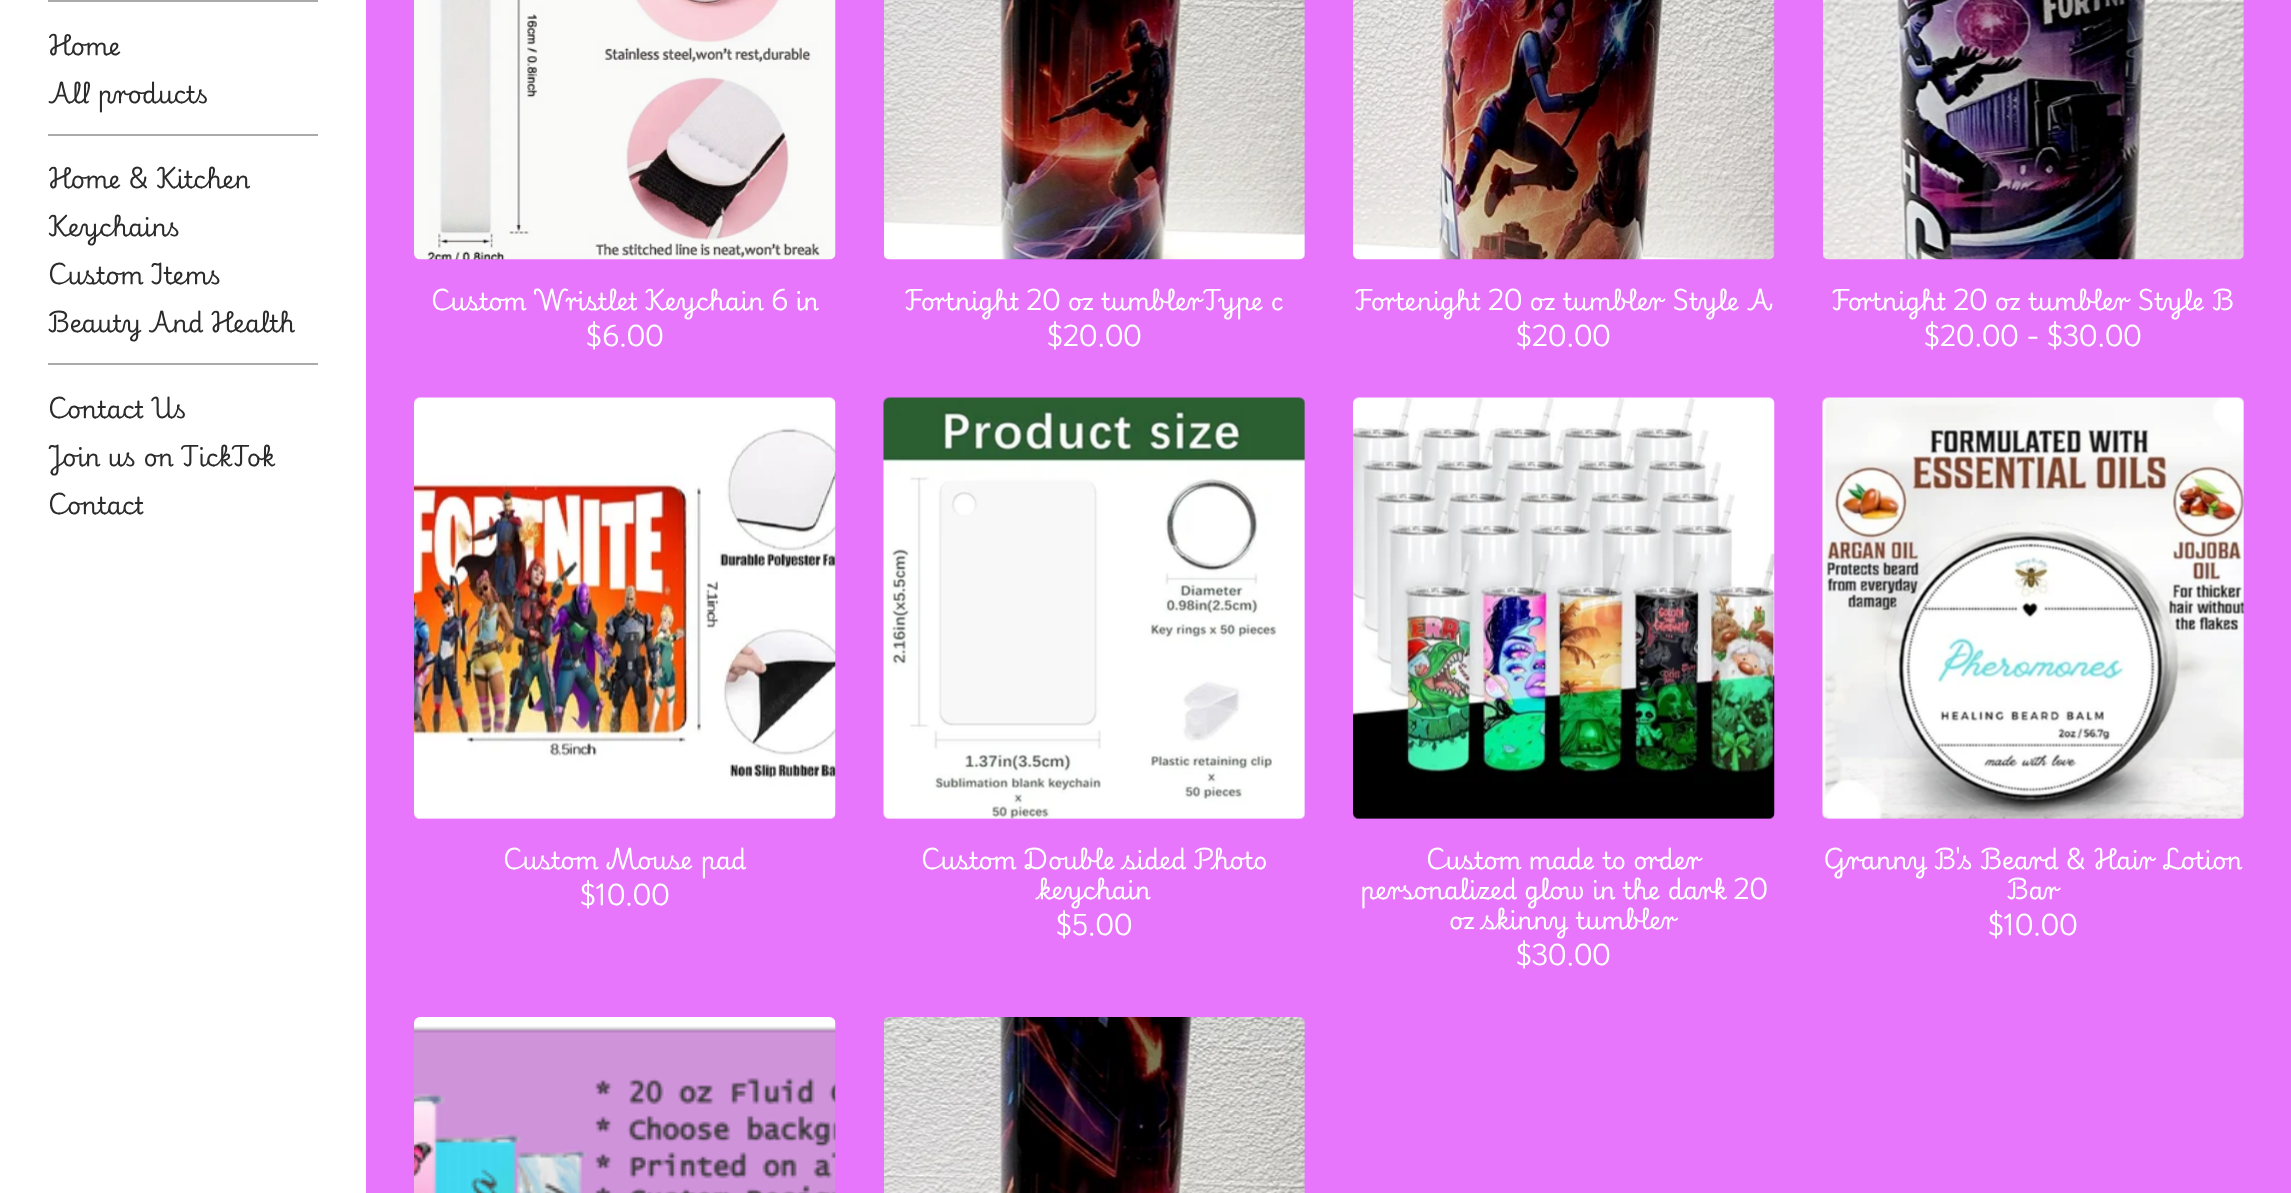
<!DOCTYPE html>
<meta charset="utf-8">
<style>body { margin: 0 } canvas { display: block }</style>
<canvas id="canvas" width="2291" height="1193"></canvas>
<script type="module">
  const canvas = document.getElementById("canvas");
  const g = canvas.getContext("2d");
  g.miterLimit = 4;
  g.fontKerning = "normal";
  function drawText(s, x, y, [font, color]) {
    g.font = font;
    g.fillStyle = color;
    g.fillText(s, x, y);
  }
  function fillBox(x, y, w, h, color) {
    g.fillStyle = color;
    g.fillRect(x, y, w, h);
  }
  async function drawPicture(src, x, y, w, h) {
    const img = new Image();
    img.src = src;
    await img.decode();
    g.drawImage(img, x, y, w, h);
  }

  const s1 = ["24px Playwrite HR Lijeva", "#2B2B2B"];
  const s2 = ["24px Playwrite HR Lijeva", "#FFFFFF"];

  fillBox(0, 0, 2291, 1193, "#E776FC");
  fillBox(0, 0, 366, 1193, "#FFFFFF");
  fillBox(48, 0, 270, 2, "#AAAAAA");
  drawText("Home", 48, 55, s1);
  drawText("All products", 48, 103, s1);
  fillBox(48, 134, 270, 2, "#AAAAAA");
  drawText("Home & Kitchen", 48, 188, s1);
  drawText("Keychains", 48, 236, s1);
  drawText("Custom Items", 48, 284, s1);
  drawText("Beauty And Health", 48, 332, s1);
  fillBox(48, 363, 270, 2, "#AAAAAA");
  drawText("Contact Us", 48, 418, s1);
  drawText("Join us on TickTok", 48, 466, s1);
  drawText("Contact", 48, 514, s1);
  await drawPicture("pic1.png", 414, 0, 422, 260);
  drawText("Custom Wristlet Keychain 6 in", 431, 310, s2);
  drawText("$6.00", 586, 346, s2);
  await drawPicture("pic2.png", 884, 0, 421, 260);
  drawText("Fortnight 20 oz tumblerType c", 905, 310, s2);
  drawText("$20.00", 1047, 346, s2);
  await drawPicture("pic3.png", 1353, 0, 422, 260);
  drawText("Fortenight 20 oz tumbler Style A", 1355, 310, s2);
  drawText("$20.00", 1516, 346, s2);
  await drawPicture("pic4.png", 1823, 0, 421, 260);
  drawText("Fortnight 20 oz tumbler Style B", 1832, 310, s2);
  drawText("$20.00 - $30.00", 1924, 346, s2);
  await drawPicture("pic5.png", 414, 397, 422, 422);
  drawText("Custom Mouse pad", 503, 869, s2);
  drawText("$10.00", 580, 905, s2);
  await drawPicture("pic6.png", 883, 397, 422, 422);
  drawText("Custom Double sided Photo", 921, 869, s2);
  drawText("keychain", 1038, 899, s2);
  drawText("$5.00", 1056, 935, s2);
  await drawPicture("pic7.png", 1353, 397, 422, 422);
  drawText("Custom made to order", 1426, 869, s2);
  drawText("personalized glow in the dark 20", 1360, 899, s2);
  drawText("oz skinny tumbler", 1449, 929, s2);
  drawText("$30.00", 1516, 965, s2);
  await drawPicture("pic8.png", 1822, 397, 422, 422);
  drawText("Granny B's Beard & Hair Lotion", 1824, 869, s2);
  drawText("Bar", 2007, 899, s2);
  drawText("$10.00", 1988, 935, s2);
  await drawPicture("pic9.png", 414, 1017, 422, 176);
  await drawPicture("pic10.png", 884, 1017, 421, 176);
</script>
